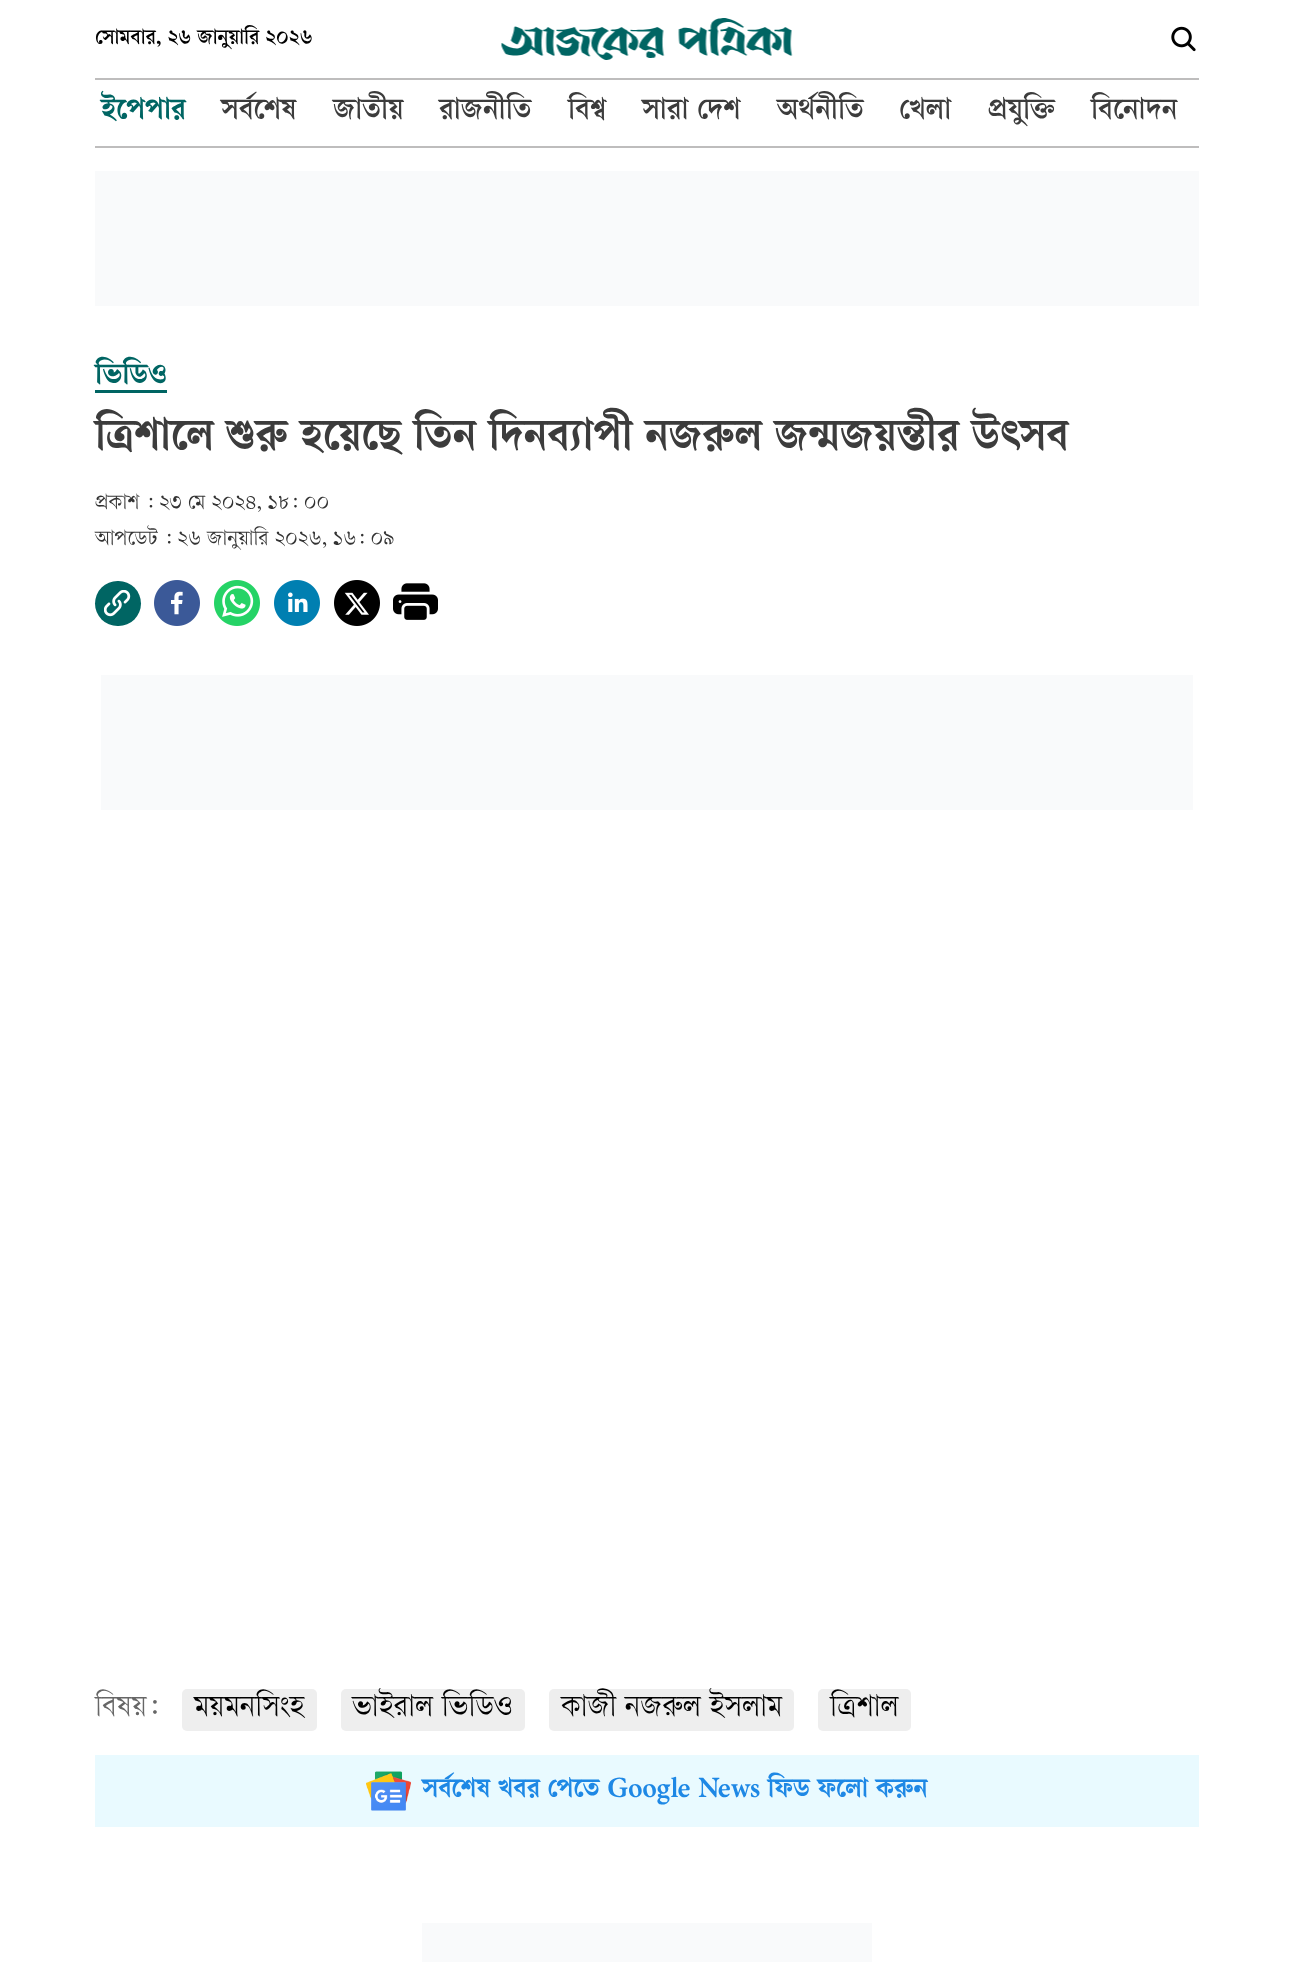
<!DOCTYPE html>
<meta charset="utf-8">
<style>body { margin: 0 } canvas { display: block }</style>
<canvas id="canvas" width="1292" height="1962"></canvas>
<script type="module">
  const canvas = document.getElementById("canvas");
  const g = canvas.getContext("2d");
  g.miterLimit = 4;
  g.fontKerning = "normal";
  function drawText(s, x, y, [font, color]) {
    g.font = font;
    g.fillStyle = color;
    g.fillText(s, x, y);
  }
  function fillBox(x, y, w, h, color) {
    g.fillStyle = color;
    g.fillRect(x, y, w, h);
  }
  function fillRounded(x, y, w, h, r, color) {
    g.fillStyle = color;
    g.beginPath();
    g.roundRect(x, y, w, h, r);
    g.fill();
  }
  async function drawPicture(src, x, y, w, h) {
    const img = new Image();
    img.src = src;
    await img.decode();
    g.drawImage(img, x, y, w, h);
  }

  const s1 = ["600 21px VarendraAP", "#000000"];
  const s2 = ["bold 30px VarendraAP", "#006563"];
  const s3 = ["600 30px VarendraAP", "#3C3C3C"];
  const s4 = ["bold 45px VarendraAP", "#3C3C3C"];
  const s5 = ["21px VarendraAP", "#333333"];
  const s6 = ["30px VarendraAP", "#666666"];
  const s7 = ["30px VarendraAP", "#000000"];
  const s8 = ["bold 27px VarendraAP", "#1E88E5"];

  fillBox(0, 0, 1292, 1962, "#FFFFFF");
  drawText("সোমবার, ২৬ জানুয়ারি ২০২৬", 95, 44, s1);
  await drawPicture("pic1.png", 501, 18, 292, 42);
  await drawPicture("pic2.png", 1171, 26, 25, 26);
  fillBox(95, 78, 1104, 2, "#BEBDBD");
  fillBox(95, 146, 1104, 2, "#BEBDBD");
  drawText("ইপেপার", 101, 119, s2);
  drawText("সর্বশেষ", 221, 119, s3);
  drawText("জাতীয়", 333, 119, s3);
  drawText("রাজনীতি", 439, 119, s3);
  drawText("বিশ্ব", 568, 119, s3);
  drawText("সারা দেশ", 642, 119, s3);
  drawText("অর্থনীতি", 777, 119, s3);
  drawText("খেলা", 899, 119, s3);
  drawText("প্রযুক্তি", 988, 119, s3);
  drawText("বিনোদন", 1091, 119, s3);
  fillBox(95, 171, 1104, 135, "#F9FAFB");
  fillBox(95, 390, 72, 3, "#006563");
  drawText("ভিডিও", 95, 384, s2);
  drawText("ত্রিশালে শুরু হয়েছে তিন দিনব্যাপী নজরুল জন্মজয়ন্তীর উৎসব", 95, 450, s4);
  drawText("প্রকাশ : ২৩ মে ২০২৪, ১৮: ০০", 95, 509, s5);
  drawText("আপডেট : ২৬ জানুয়ারি ২০২৬, ১৬: ০৯", 95, 545, s5);
  fillRounded(95, 581, 46, 45, 22.5, "#006563");
  await drawPicture("pic3.png", 104, 590, 27, 27);
  await drawPicture("pic4.png", 154, 580, 46, 46);
  await drawPicture("pic5.png", 214, 580, 46, 46);
  await drawPicture("pic6.png", 274, 580, 46, 46);
  await drawPicture("pic7.png", 334, 580, 46, 46);
  await drawPicture("pic8.png", 393, 583, 45, 37);
  fillBox(101, 675, 1092, 135, "#F9FAFB");
  drawText("বিষয়:", 95, 1716, s6);
  fillRounded(182, 1689, 135, 42, 5, "#EEEEEE");
  drawText("ময়মনসিংহ", 194, 1716, s7);
  fillRounded(341, 1689, 184, 42, 5, "#EEEEEE");
  drawText("ভাইরাল ভিডিও", 352, 1716, s7);
  fillRounded(549, 1689, 245, 42, 5, "#EEEEEE");
  drawText("কাজী নজরুল ইসলাম", 561, 1716, s7);
  fillRounded(818, 1689, 93, 42, 5, "#EEEEEE");
  drawText("ত্রিশাল", 830, 1716, s7);
  fillBox(95, 1755, 1104, 72, "#E9FAFF");
  await drawPicture("pic9.png", 366, 1771, 45, 40);
  drawText("সর্বশেষ খবর পেতে Google News ফিড ফলো করুন", 422, 1797, s8);
  fillBox(422, 1923, 450, 39, "#F9FAFB");
</script>
